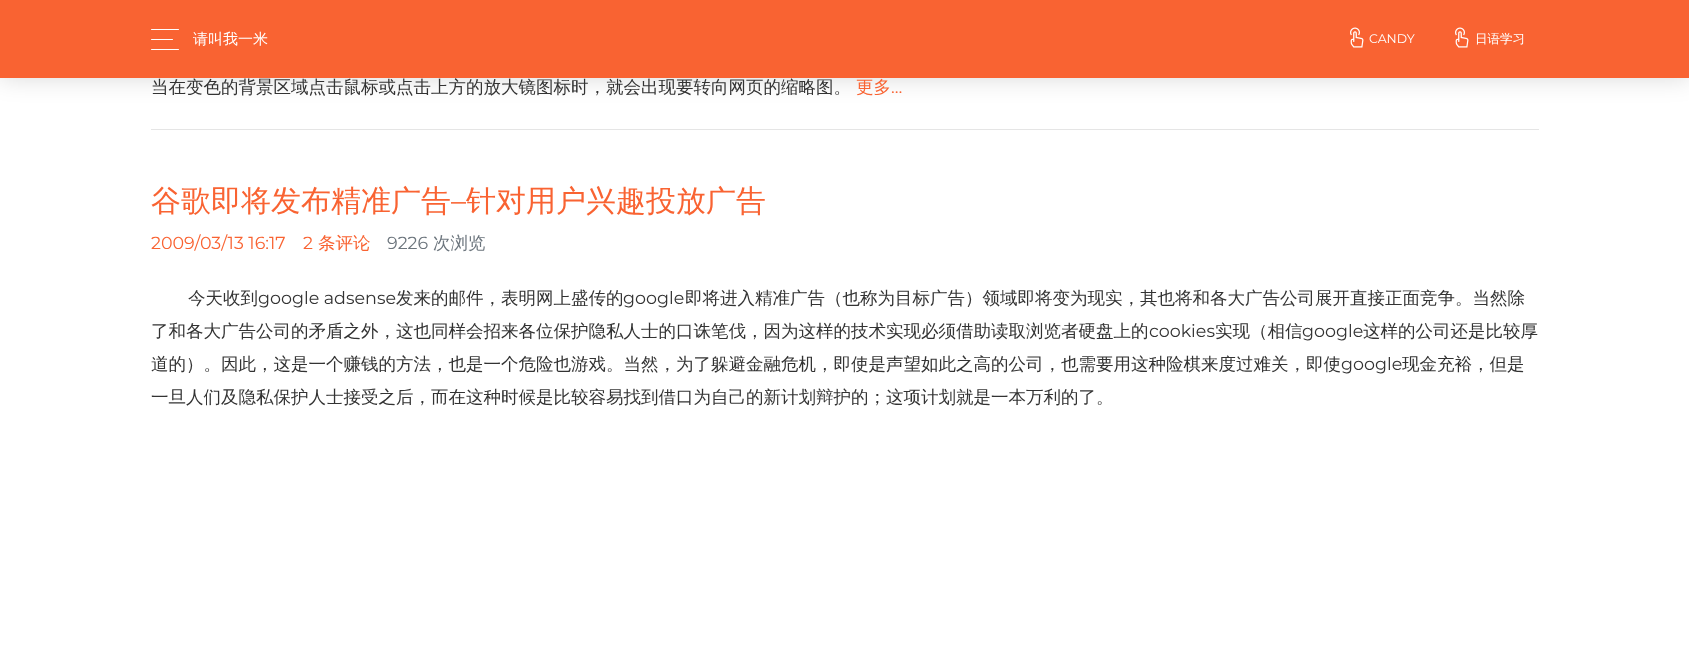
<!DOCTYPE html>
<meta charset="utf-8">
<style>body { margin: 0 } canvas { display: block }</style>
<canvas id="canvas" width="1689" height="670"></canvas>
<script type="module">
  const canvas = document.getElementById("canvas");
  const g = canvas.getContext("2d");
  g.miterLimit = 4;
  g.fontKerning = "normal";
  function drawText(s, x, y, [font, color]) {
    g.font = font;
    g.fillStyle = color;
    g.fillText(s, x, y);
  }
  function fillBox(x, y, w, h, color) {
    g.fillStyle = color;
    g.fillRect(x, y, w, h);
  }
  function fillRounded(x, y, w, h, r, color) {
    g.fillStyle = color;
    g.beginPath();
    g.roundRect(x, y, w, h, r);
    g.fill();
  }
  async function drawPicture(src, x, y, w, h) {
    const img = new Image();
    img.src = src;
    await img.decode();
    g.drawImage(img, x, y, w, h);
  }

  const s1 = ["500 15px WenQuanYi Zen Hei", "#FFFFFF"];
  const s2 = ["12.5px Montserrat", "#FFFFFF"];
  const s3 = ["500 12.5px WenQuanYi Zen Hei", "#FFFFFF"];
  const s4 = ["500 17.5px WenQuanYi Zen Hei", "#333333"];
  const s5 = ["500 17.5px WenQuanYi Zen Hei", "#F96332"];
  const s6 = ["17.5px Montserrat", "#F96332"];
  const s7 = ["500 30px WenQuanYi Zen Hei", "#F96332"];
  const s8 = ["30px Montserrat", "#F96332"];
  const s9 = ["17.5px Montserrat", "#6C757D"];
  const s10 = ["500 17.5px WenQuanYi Zen Hei", "#6C757D"];
  const s11 = ["17.5px Montserrat", "#333333"];

  fillBox(0, 0, 1689, 670, "#FFFFFF");
  g.fillStyle = "rgba(0, 0, 0, 0.15)";
  g.filter = "blur(12.5px)";
  g.beginPath();
  g.rect(0, 0, 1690, 78);
  g.fill();
  g.filter = "none";
  fillBox(0, 0, 1689, 78, "#F96332");
  fillRounded(151, 29, 28, 1, 0.5, "#FFFFFF");
  fillRounded(151, 39, 22, 1, 0.5, "#FFFFFF");
  fillRounded(151, 49, 28, 1, 0.5, "#FFFFFF");
  drawText("请叫我一米", 193, 44, s1);
  await drawPicture("pic1.png", 1350, 27, 14, 21);
  drawText("CANDY", 1369, 43, s2);
  await drawPicture("pic1.png", 1455, 27, 14, 21);
  drawText("日语学习", 1475, 43, s3);
  fillBox(151, 129, 1388, 1, "#E5E5E5");
  drawText("当在变色的背景区域点击鼠标或点击上方的放大镜图标时，就会出现要转向网页的缩略图。", 151, 93, s4);
  drawText("更多", 856, 93, s5);
  drawText("…", 891, 93, s6);
  drawText("谷歌即将发布精准广告", 151, 211, s7);
  drawText("–", 451, 211, s8);
  drawText("针对用户兴趣投放广告", 466, 211, s7);
  drawText("2009/03/13 16:17", 151, 249, s6);
  drawText("2", 303, 249, s6);
  drawText("条评论", 318, 249, s5);
  drawText("9226", 387, 249, s9);
  drawText("次浏览", 433, 249, s10);
  drawText("今天收到", 188, 304, s4);
  drawText("google adsense", 258, 304, s11);
  drawText("发来的邮件，表明网上盛传的", 396, 304, s4);
  drawText("google", 623, 304, s11);
  drawText("即将进入精准广告（也称为目标广告）领域即将变为现实，其也将和各大广告公司展开直接正面竞争。当然除", 685, 304, s4);
  drawText("了和各大广告公司的矛盾之外，这也同样会招来各位保护隐私人士的口诛笔伐，因为这样的技术实现必须借助读取浏览者硬盘上的", 151, 337, s4);
  drawText("cookies", 1149, 337, s11);
  drawText("实现（相信", 1215, 337, s4);
  drawText("google", 1302, 337, s11);
  drawText("这样的公司还是比较厚", 1363, 337, s4);
  drawText("道的）。因此，这是一个赚钱的方法，也是一个危险也游戏。当然，为了躲避金融危机，即使是声望如此之高的公司，也需要用这种险棋来度过难关，即使", 151, 370, s4);
  drawText("google", 1341, 370, s11);
  drawText("现金充裕，但是", 1402, 370, s4);
  drawText("一旦人们及隐私保护人士接受之后，而在这种时候是比较容易找到借口为自己的新计划辩护的；这项计划就是一本万利的了。", 151, 403, s4);
</script>
